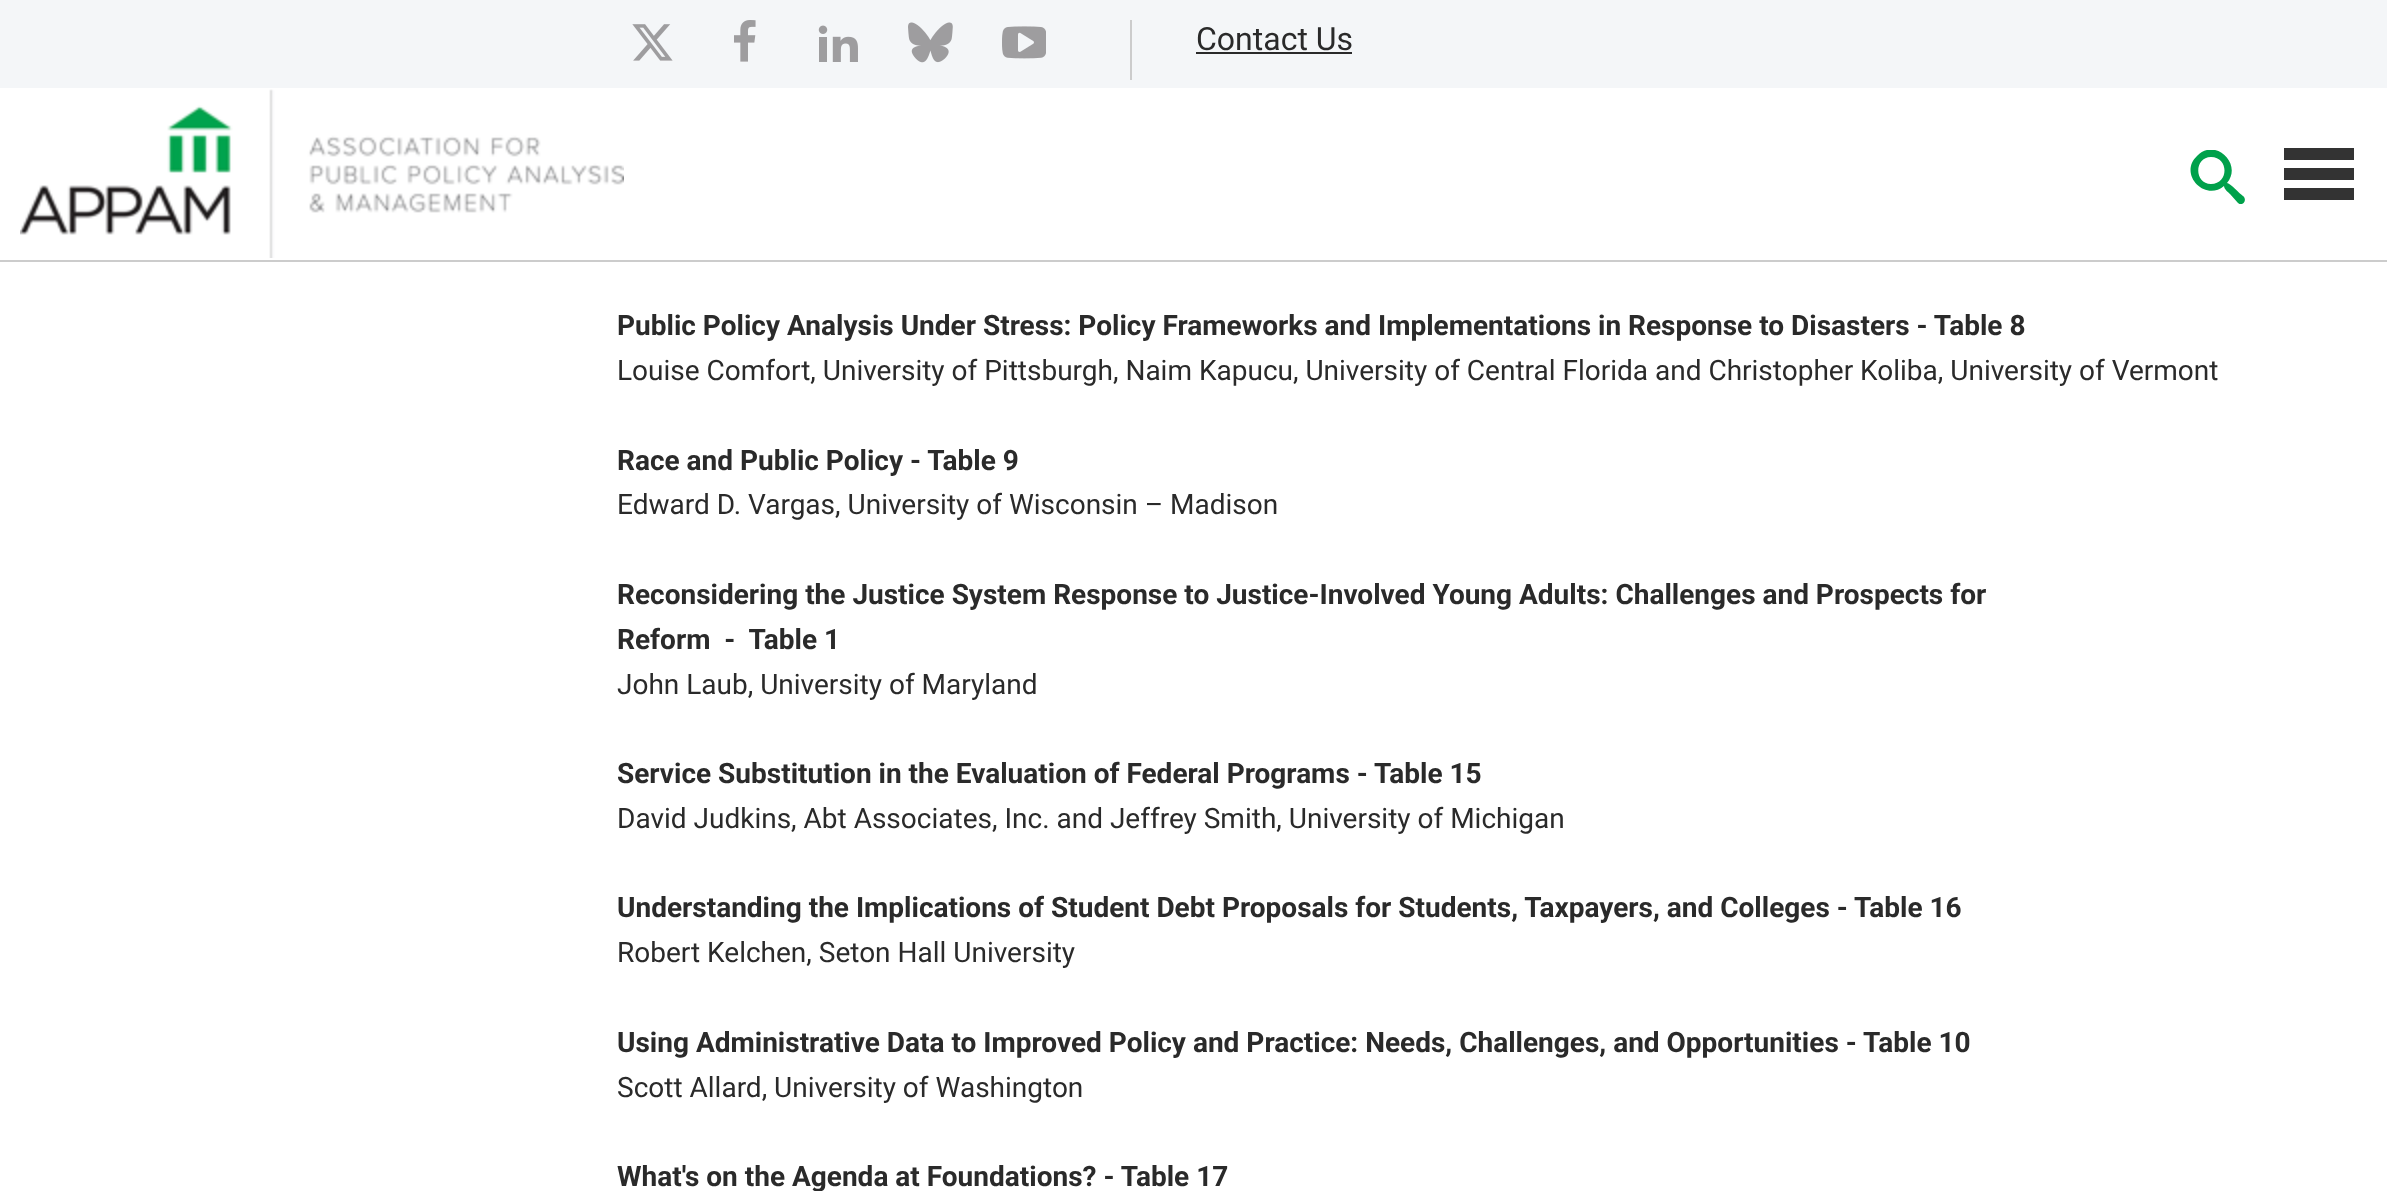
<!DOCTYPE html>
<meta charset="utf-8">
<style>body { margin: 0 } canvas { display: block }</style>
<canvas id="canvas" width="2387" height="1191"></canvas>
<script type="module">
  const canvas = document.getElementById("canvas");
  const g = canvas.getContext("2d");
  g.miterLimit = 4;
  g.fontKerning = "normal";
  function drawText(s, x, y, [font, color]) {
    g.font = font;
    g.fillStyle = color;
    g.fillText(s, x, y);
  }
  function fillBox(x, y, w, h, color) {
    g.fillStyle = color;
    g.fillRect(x, y, w, h);
  }
  async function drawPicture(src, x, y, w, h) {
    const img = new Image();
    img.src = src;
    await img.decode();
    g.drawImage(img, x, y, w, h);
  }

  const s1 = ["32px Roboto", "#2A2A2A"];
  const s2 = ["bold 28px Roboto", "#2A2A2A"];
  const s3 = ["28px Roboto", "#2A2A2A"];

  fillBox(0, 0, 2387, 1191, "#FFFFFF");
  fillBox(0, 260, 2387, 2, "#CCCCCC");
  fillBox(0, 0, 2387, 88, "#F4F6F8");
  fillBox(1130, 20, 2, 60, "#CCCCCC");
  await drawPicture("pic1.png", 632, 24, 41, 37);
  await drawPicture("pic2.png", 734, 20, 22, 42);
  await drawPicture("pic3.png", 818, 25, 40, 37);
  await drawPicture("pic4.png", 908, 22, 45, 41);
  await drawPicture("pic5.png", 1002, 26, 44, 33);
  drawText("Contact Us", 1196, 50, s1);
  fillBox(1196, 52, 156, 2, "#2A2A2A");
  g.save();
  g.beginPath();
  g.rect(2182, 150, 72, 54);
  g.clip();
  g.fillStyle = "#00A14B";
  g.beginPath();
  g.moveTo(2243, 196);
  g.bezierCurveTo(2240, 194, 2230, 183, 2227, 183);
  g.bezierCurveTo(2243, 164, 2215, 137, 2197, 156);
  g.bezierCurveTo(2178, 174, 2205, 202, 2224, 186);
  g.bezierCurveTo(2224, 189, 2228, 192, 2230, 194);
  g.lineTo(2238, 203);
  g.bezierCurveTo(2242, 207, 2248, 200, 2243, 196);
  g.closePath();
  g.moveTo(2211, 184);
  g.bezierCurveTo(2194, 184, 2194, 157, 2211, 157);
  g.bezierCurveTo(2229, 157, 2229, 184, 2211, 184);
  g.closePath();
  g.fill();
  g.restore();
  await drawPicture("pic6.png", 20, 89, 604, 169);
  fillBox(2284, 148, 70, 12, "#333333");
  fillBox(2284, 168, 70, 12, "#333333");
  fillBox(2284, 188, 70, 12, "#333333");
  drawText("Public Policy Analysis Under Stress: Policy Frameworks and Implementations in Response to Disasters - Table 8", 617, 335, s2);
  drawText("Louise Comfort, University of Pittsburgh, Naim Kapucu, University of Central Florida and Christopher Koliba, University of Vermont", 617, 380, s3);
  drawText("Race and Public Policy - Table 9", 617, 470, s2);
  drawText("Edward D. Vargas, University of Wisconsin – Madison", 617, 514, s3);
  drawText("Reconsidering the Justice System Response to Justice-Involved Young Adults: Challenges and Prospects for", 617, 604, s2);
  drawText("Reform  -  Table 1", 617, 649, s2);
  drawText("John Laub, University of Maryland", 617, 694, s3);
  drawText("Service Substitution in the Evaluation of Federal Programs - Table 15", 617, 783, s2);
  drawText("David Judkins, Abt Associates, Inc. and Jeffrey Smith, University of Michigan", 617, 828, s3);
  drawText("Understanding the Implications of Student Debt Proposals for Students, Taxpayers, and Colleges - Table 16", 617, 917, s2);
  drawText("Robert Kelchen, Seton Hall University", 617, 962, s3);
  drawText("Using Administrative Data to Improved Policy and Practice: Needs, Challenges, and Opportunities - Table 10", 617, 1052, s2);
  drawText("Scott Allard, University of Washington", 617, 1097, s3);
  drawText("What's on the Agenda at Foundations? - Table 17", 617, 1186, s2);
</script>
